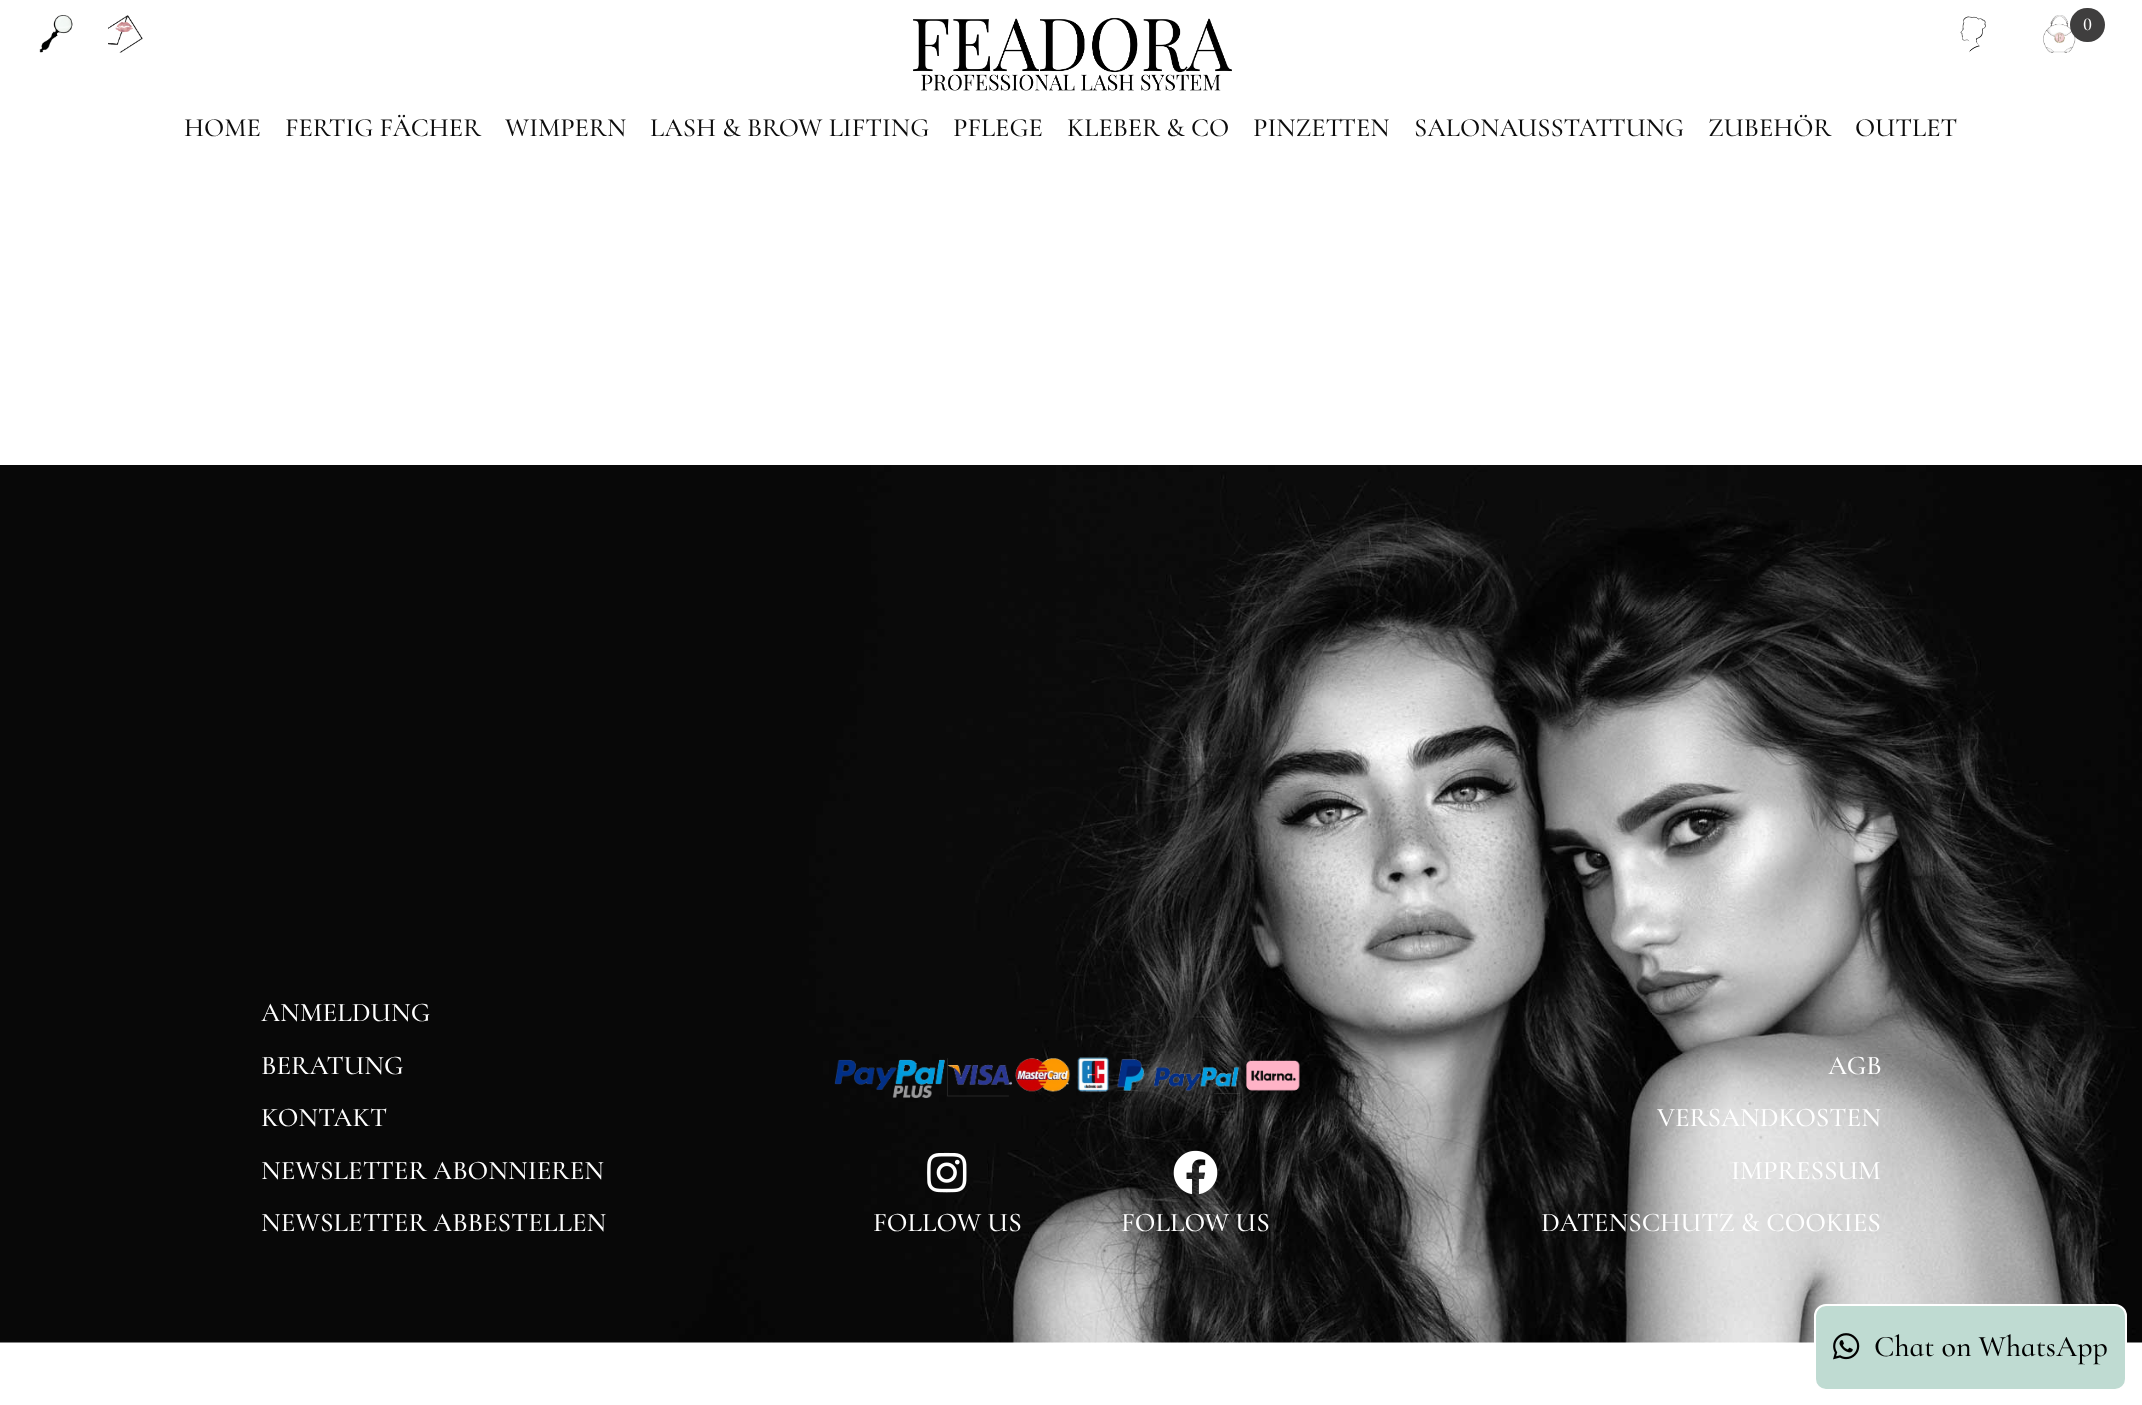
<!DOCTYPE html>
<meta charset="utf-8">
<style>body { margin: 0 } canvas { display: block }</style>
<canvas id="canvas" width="2142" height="1405"></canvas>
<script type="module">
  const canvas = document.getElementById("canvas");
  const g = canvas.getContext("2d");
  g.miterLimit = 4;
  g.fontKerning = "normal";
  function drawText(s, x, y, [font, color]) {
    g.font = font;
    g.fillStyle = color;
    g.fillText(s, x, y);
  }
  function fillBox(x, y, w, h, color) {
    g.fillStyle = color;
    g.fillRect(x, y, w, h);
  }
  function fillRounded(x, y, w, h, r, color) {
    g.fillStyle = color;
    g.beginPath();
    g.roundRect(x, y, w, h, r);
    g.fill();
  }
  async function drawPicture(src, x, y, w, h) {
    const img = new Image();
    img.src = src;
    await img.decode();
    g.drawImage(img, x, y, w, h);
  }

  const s1 = ["500 18px Cormorant Infant", "#FFFFFF"];
  const s2 = ["500 26.4px Cormorant Infant", "#0D0D0D"];
  const s3 = ["500 27px Cormorant Infant", "#FFFFFF"];
  const s4 = ["500 30px Cormorant Infant", "#000000"];

  fillBox(0, 0, 2142, 1405, "#FFFFFF");
  await drawPicture("pic1.png", 39, 15, 34, 38);
  await drawPicture("pic2.png", 108, 15, 35, 38);
  await drawPicture("pic3.png", 913, 17, 319, 74);
  await drawPicture("pic4.png", 1960, 16, 26, 37);
  await drawPicture("pic5.png", 2043, 15, 33, 38);
  fillRounded(2070, 8, 35, 34, 17, "#3F3E3E");
  drawText("0", 2083, 30, s1);
  drawText("HOME", 184, 136, s2);
  drawText("FERTIG FÄCHER", 285, 136, s2);
  drawText("WIMPERN", 505, 136, s2);
  drawText("LASH & BROW LIFTING", 650, 136, s2);
  drawText("PFLEGE", 953, 136, s2);
  drawText("KLEBER & CO", 1067, 136, s2);
  drawText("PINZETTEN", 1253, 136, s2);
  drawText("SALONAUSSTATTUNG", 1414, 136, s2);
  drawText("ZUBEHÖR", 1708, 136, s2);
  drawText("OUTLET", 1855, 136, s2);
  await drawPicture("pic6.png", 0, 465, 2142, 878);
  drawText("ANMELDUNG", 261, 1021, s3);
  drawText("BERATUNG", 261, 1074, s3);
  drawText("KONTAKT", 261, 1126, s3);
  drawText("NEWSLETTER ABONNIEREN", 261, 1179, s3);
  drawText("NEWSLETTER ABBESTELLEN", 261, 1231, s3);
  await drawPicture("pic7.png", 834, 1056, 466, 43);
  await drawPicture("pic8.png", 927, 1152, 40, 41);
  drawText("FOLLOW US", 873, 1231, s3);
  await drawPicture("pic9.png", 1173, 1150, 45, 45);
  drawText("FOLLOW US", 1121, 1231, s3);
  drawText("AGB", 1828, 1074, s3);
  drawText("VERSANDKOSTEN", 1657, 1126, s3);
  drawText("IMPRESSUM", 1731, 1179, s3);
  drawText("DATENSCHUTZ & COOKIES", 1541, 1231, s3);
  g.fillStyle = "#BFDBD2";
  g.beginPath();
  g.roundRect(1815, 1305, 311, 85, 11);
  g.fill();
  g.strokeStyle = "#FFFFFF";
  g.lineWidth = 2;
  g.stroke();
  await drawPicture("pic10.png", 1833, 1333, 27, 27);
  drawText("Chat on WhatsApp", 1874, 1356, s4);
</script>
